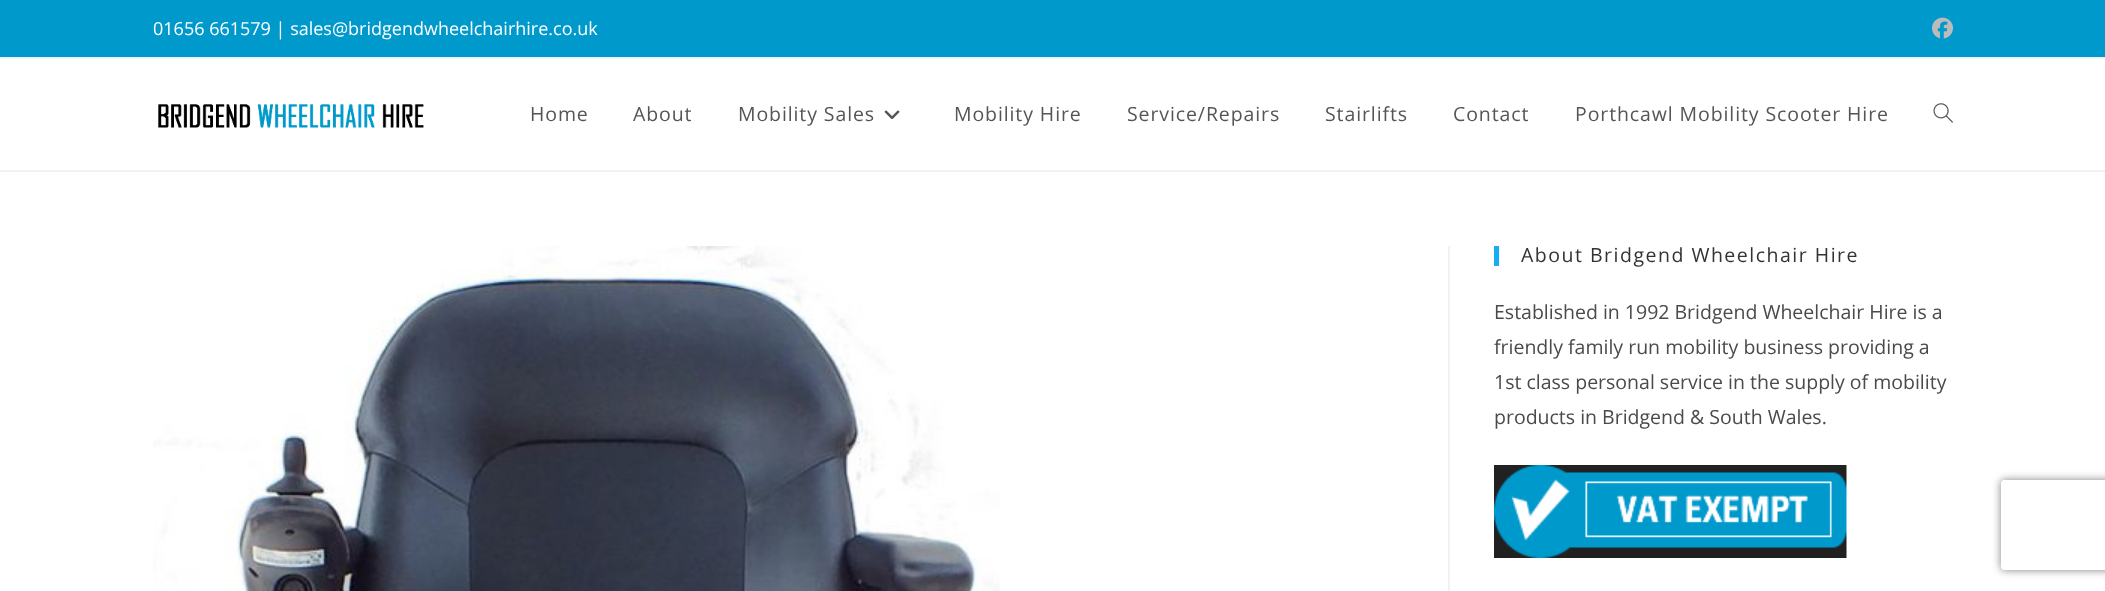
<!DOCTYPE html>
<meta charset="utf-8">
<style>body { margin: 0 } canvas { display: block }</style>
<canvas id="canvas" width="2105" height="591"></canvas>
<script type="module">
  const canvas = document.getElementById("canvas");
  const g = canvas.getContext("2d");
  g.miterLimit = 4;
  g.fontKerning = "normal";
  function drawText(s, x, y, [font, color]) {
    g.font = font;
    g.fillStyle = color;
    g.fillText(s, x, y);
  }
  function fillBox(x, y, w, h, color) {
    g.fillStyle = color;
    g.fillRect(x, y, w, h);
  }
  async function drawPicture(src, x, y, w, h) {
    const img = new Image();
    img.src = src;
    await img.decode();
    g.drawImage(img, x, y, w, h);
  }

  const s1 = ["18px Open Sans", "#FFFFFF"];
  const s2 = ["19.5px Open Sans", "#555555"];
  const s3 = ["19.5px Open Sans", "#333333"];
  const s4 = ["19.5px Open Sans", "#4A4A4A"];

  fillBox(0, 0, 2105, 591, "#FFFFFF");
  fillBox(0, 0, 2105, 57, "#0099CC");
  fillBox(0, 57, 2105, 2, "#F1F1F1");
  drawText("01656 661579 | sales@bridgendwheelchairhire.co.uk", 153, 35, s1);
  await drawPicture("pic1.png", 1932, 17, 21, 22);
  fillBox(0, 170, 2105, 2, "#F1F1F1");
  await drawPicture("pic2.png", 158, 104, 266, 24);
  g.letterSpacing = "0.9px";
  drawText("Home", 530, 121, s2);
  drawText("About", 633, 121, s2);
  drawText("Mobility Sales", 738, 121, s2);
  await drawPicture("pic3.png", 884, 110, 16, 9);
  drawText("Mobility Hire", 954, 121, s2);
  drawText("Service/Repairs", 1127, 121, s2);
  drawText("Stairlifts", 1325, 121, s2);
  drawText("Contact", 1453, 121, s2);
  drawText("Porthcawl Mobility Scooter Hire", 1575, 121, s2);
  await drawPicture("pic4.png", 1933, 103, 20, 20);
  fillBox(1448, 246, 2, 345, "#F1F1F1");
  await drawPicture("pic5.png", 153, 246, 847, 345);
  fillBox(1494, 246, 5, 20, "#13AFF0");
  g.letterSpacing = "1.5px";
  drawText("About Bridgend Wheelchair Hire", 1521, 262, s3);
  g.letterSpacing = "0px";
  drawText("Established in 1992 Bridgend Wheelchair Hire is a", 1494, 319, s4);
  drawText("friendly family run mobility business providing a", 1494, 354, s4);
  drawText("1st class personal service in the supply of mobility", 1494, 389, s4);
  drawText("products in Bridgend & South Wales.", 1494, 424, s4);
  await drawPicture("pic6.png", 1494, 465, 353, 93);
  g.save();
  g.beginPath();
  g.moveTo(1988, 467);
  g.lineTo(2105, 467);
  g.lineTo(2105, 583);
  g.lineTo(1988, 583);
  g.closePath();
  g.moveTo(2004, 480);
  g.lineTo(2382, 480);
  g.bezierCurveTo(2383.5, 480, 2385, 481.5, 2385, 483);
  g.lineTo(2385, 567);
  g.bezierCurveTo(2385, 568.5, 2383.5, 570, 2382, 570);
  g.lineTo(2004, 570);
  g.bezierCurveTo(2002.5, 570, 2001, 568.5, 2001, 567);
  g.lineTo(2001, 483);
  g.bezierCurveTo(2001, 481.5, 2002.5, 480, 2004, 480);
  g.closePath();
  g.clip("evenodd");
  g.fillStyle = "#808080";
  g.filter = "blur(4px)";
  g.beginPath();
  g.roundRect(2001, 480, 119, 90, 3);
  g.fill();
  g.filter = "none";
  g.restore();
</script>
